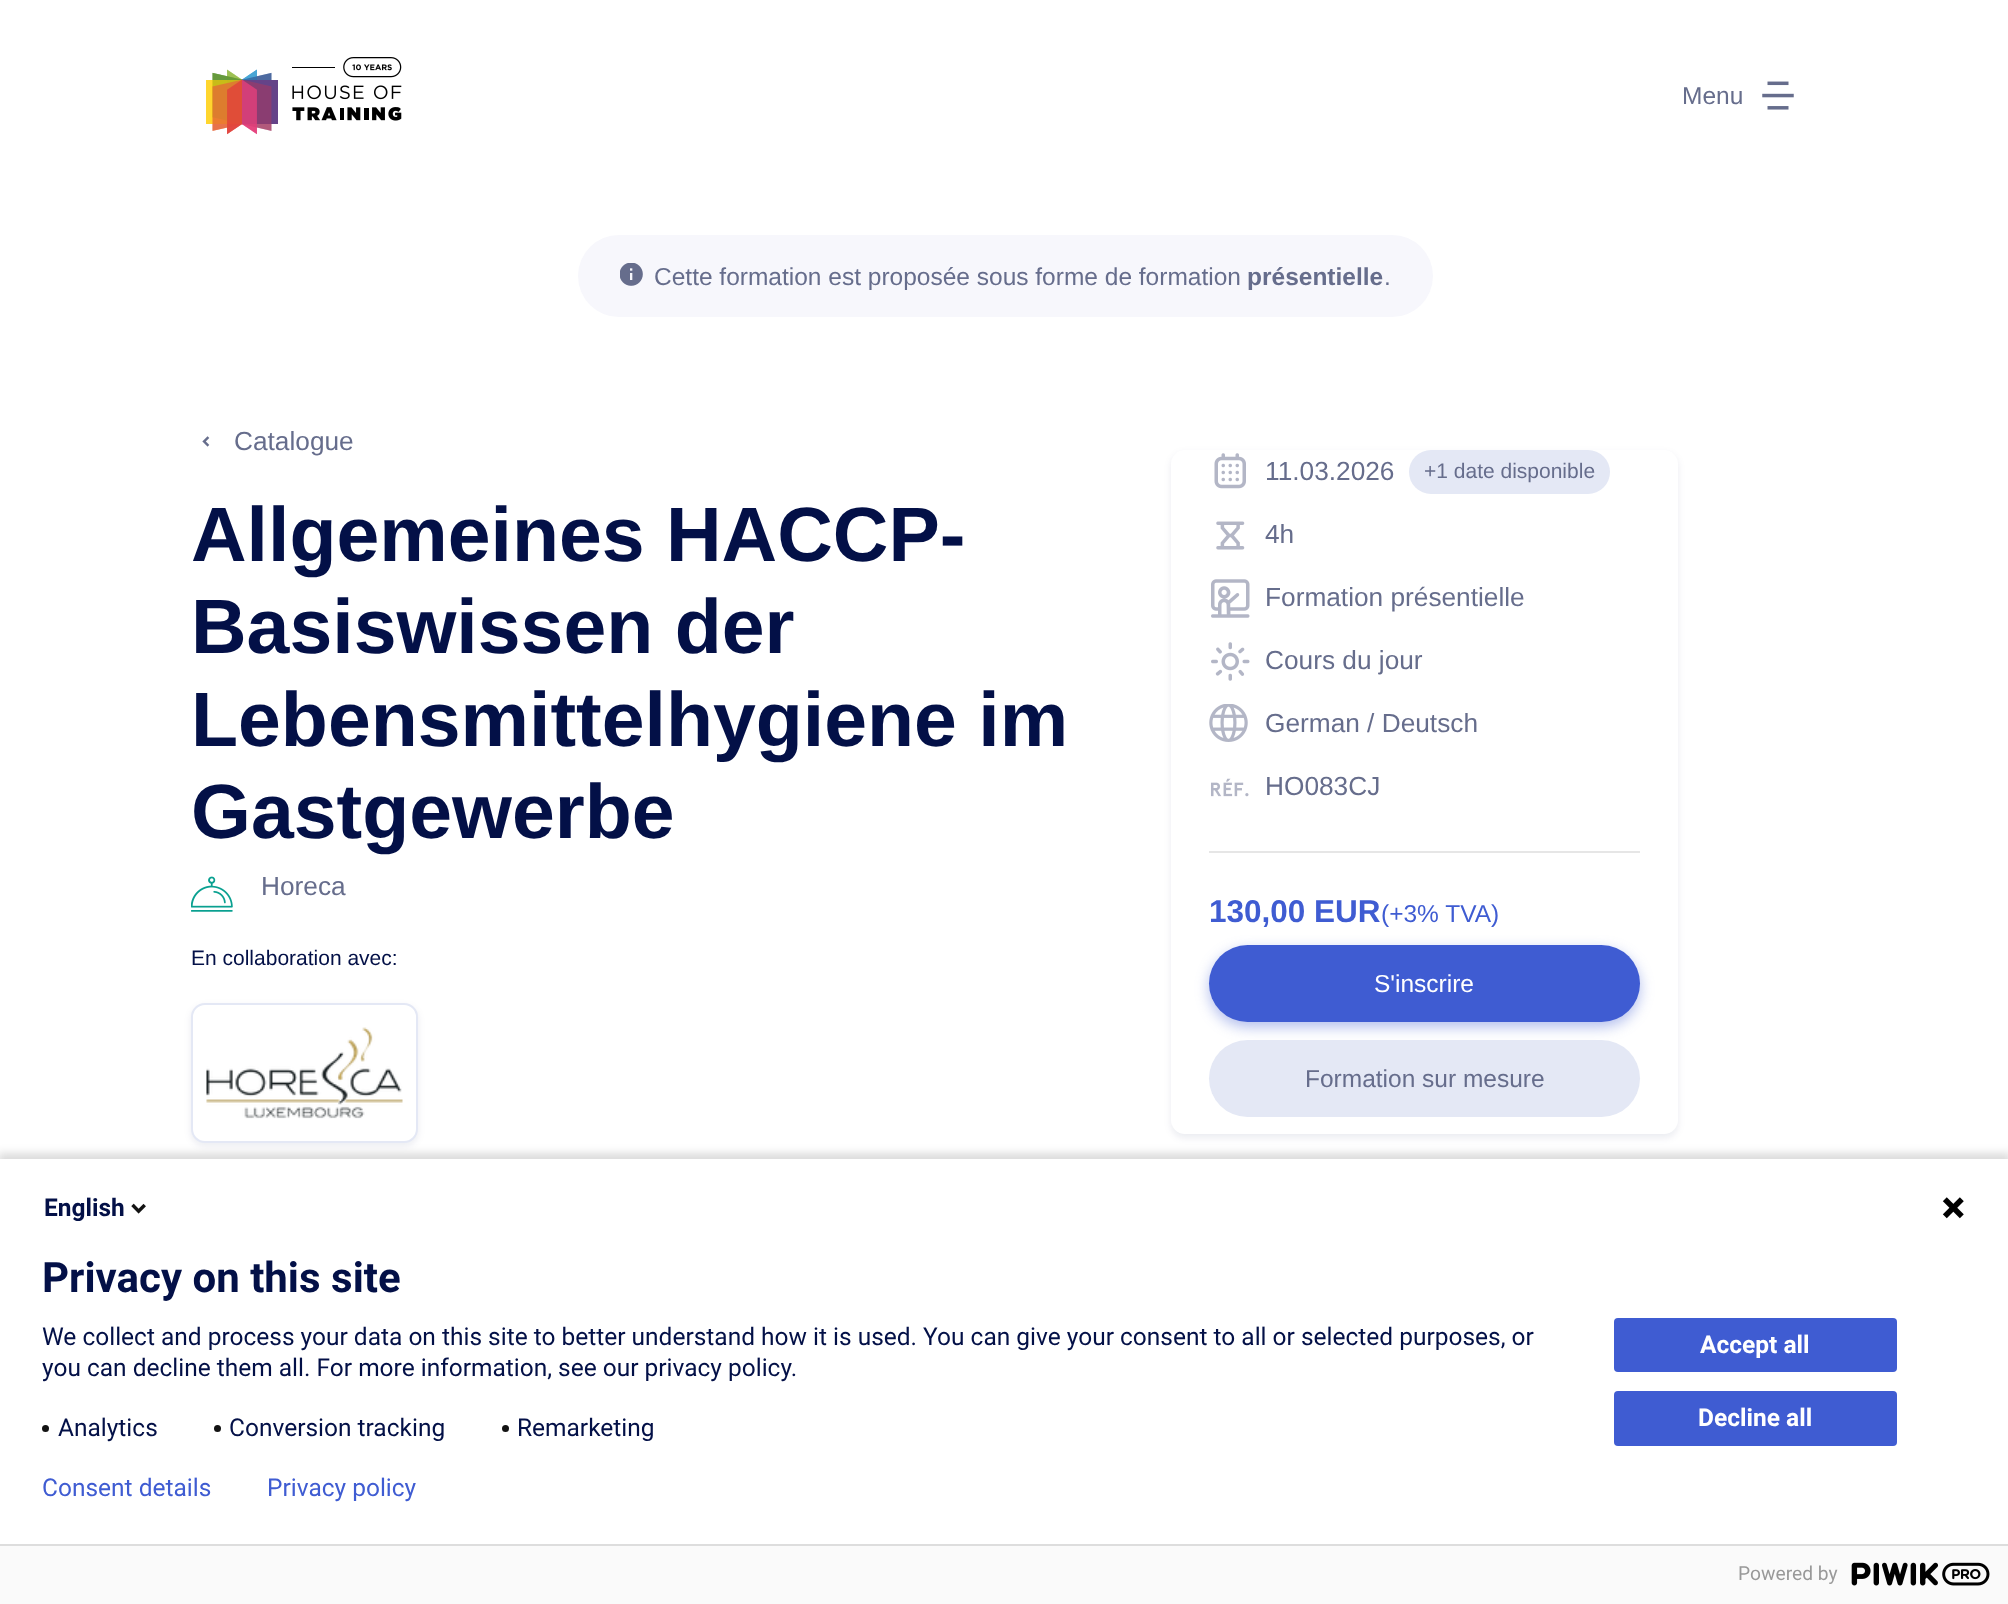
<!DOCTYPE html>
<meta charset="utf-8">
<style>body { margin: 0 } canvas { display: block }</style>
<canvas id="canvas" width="2008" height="1604"></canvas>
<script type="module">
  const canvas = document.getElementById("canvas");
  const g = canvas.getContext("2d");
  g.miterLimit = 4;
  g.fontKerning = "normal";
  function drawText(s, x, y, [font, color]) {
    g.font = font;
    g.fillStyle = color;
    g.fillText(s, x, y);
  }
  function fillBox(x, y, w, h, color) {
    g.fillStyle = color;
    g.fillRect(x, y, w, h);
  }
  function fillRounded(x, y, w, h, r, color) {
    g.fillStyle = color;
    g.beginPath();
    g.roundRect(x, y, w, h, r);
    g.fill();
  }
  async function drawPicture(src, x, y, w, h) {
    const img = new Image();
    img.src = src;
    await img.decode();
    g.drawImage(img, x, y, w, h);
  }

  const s1 = ["24.5px Liberation Sans", "#666D8C"];
  const s2 = ["bold 24.5px Liberation Sans", "#666D8C"];
  const s3 = ["26.25px Liberation Sans", "#666D8C"];
  const s4 = ["bold 77px Liberation Sans", "#031047"];
  const s5 = ["21px Liberation Sans", "#031047"];
  const s6 = ["21px Liberation Sans", "#666D8C"];
  const s7 = ["bold 31.5px Liberation Sans", "#3F5CD2"];
  const s8 = ["24.5px Liberation Sans", "#3F5CD2"];
  const s9 = ["24.5px Liberation Sans", "#FFFFFF"];
  const s10 = ["bold 24.5px Roboto", "#031047"];
  const s11 = ["bold 42px Roboto", "#031047"];
  const s12 = ["24.5px Roboto", "#031047"];
  const s13 = ["bold 24.5px Roboto", "#FFFFFF"];
  const s14 = ["24.5px Roboto", "#3F5CD2"];
  const s15 = ["19.25px Roboto", "#999999"];

  fillBox(0, 0, 2008, 1604, "#FFFFFF");
  await drawPicture("pic1.png", 206, 57, 196, 78);
  drawText("Menu", 1682, 104, s1);
  await drawPicture("pic2.png", 1762, 81, 32, 29);
  fillRounded(578, 235, 855, 82, 41, "#F7F7FC");
  await drawPicture("pic3.png", 620, 263, 23, 23);
  drawText("Cette formation est proposée sous forme de formation", 654, 285, s1);
  drawText("présentielle", 1247, 285, s2);
  drawText(".", 1384, 285, s1);
  await drawPicture("pic4.png", 202, 436, 8, 11);
  drawText("Catalogue", 234, 450, s3);
  drawText("Allgemeines HACCP-", 191, 561, s4);
  drawText("Basiswissen der", 191, 653, s4);
  drawText("Lebensmittelhygiene im", 191, 746, s4);
  drawText("Gastgewerbe", 191, 838, s4);
  await drawPicture("pic5.png", 191, 876, 42, 36);
  drawText("Horeca", 261, 895, s3);
  drawText("En collaboration avec:", 191, 965, s5);
  g.fillStyle = "rgba(3, 16, 71, 0.08)";
  g.filter = "blur(3.5px)";
  g.beginPath();
  g.roundRect(191, 1006, 227, 140, 14);
  g.fill();
  g.filter = "none";
  g.fillStyle = "#FFFFFF";
  g.beginPath();
  g.roundRect(192, 1004, 225, 138, 13);
  g.fill();
  g.strokeStyle = "#E4E8F5";
  g.lineWidth = 2;
  g.stroke();
  await drawPicture("pic6.png", 206, 1027, 197, 92);
  g.fillStyle = "rgba(3, 16, 71, 0.08)";
  g.filter = "blur(3.5px)";
  g.beginPath();
  g.roundRect(1171, 453, 507, 685, 14);
  g.fill();
  g.filter = "none";
  fillRounded(1171, 450, 507, 684, 14, "#FFFFFF");
  await drawPicture("pic7.png", 1214, 453, 32, 36);
  drawText("11.03.2026", 1265, 480, s3);
  fillRounded(1409, 450, 201, 44, 22, "#E4E8F5");
  drawText("+1 date disponible", 1424, 478, s6);
  await drawPicture("pic8.png", 1216, 521, 29, 29);
  drawText("4h", 1265, 543, s3);
  await drawPicture("pic9.png", 1211, 579, 39, 39);
  drawText("Formation présentielle", 1265, 606, s3);
  await drawPicture("pic10.png", 1211, 642, 39, 39);
  drawText("Cours du jour", 1265, 669, s3);
  await drawPicture("pic11.png", 1209, 704, 39, 38);
  drawText("German / Deutsch", 1265, 732, s3);
  await drawPicture("pic12.png", 1211, 778, 38, 19);
  drawText("HO083CJ", 1265, 795, s3);
  fillBox(1209, 851, 431, 2, "#E6E6E6");
  drawText("130,00 EUR", 1209, 922, s7);
  drawText("(+3% TVA)", 1381, 922, s8);
  g.fillStyle = "rgba(63, 92, 210, 0.4)";
  g.filter = "blur(7px)";
  g.beginPath();
  g.roundRect(1209, 950, 431, 77, 38.5);
  g.fill();
  g.filter = "none";
  fillRounded(1209, 945, 431, 77, 38.5, "#3F5CD2");
  drawText("S'inscrire", 1374, 992, s9);
  fillRounded(1209, 1040, 431, 77, 38.5, "#E4E8F5");
  drawText("Formation sur mesure", 1305, 1087, s1);
  g.fillStyle = "rgba(0, 0, 0, 0.14)";
  g.filter = "blur(4.5px)";
  g.beginPath();
  g.rect(-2, 1153, 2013, 450);
  g.fill();
  g.filter = "none";
  fillBox(0, 1159, 2008, 385, "#FFFFFF");
  drawText("English", 44, 1216, s10);
  await drawPicture("pic13.png", 131, 1203, 15, 11);
  await drawPicture("pic14.png", 1942, 1197, 22, 22);
  drawText("Privacy on this site", 42, 1292, s11);
  drawText("We collect and process your data on this site to better understand how it is used. You can give your consent to all or selected purposes, or", 42, 1345, s12);
  drawText("you can decline them all. For more information, see our privacy policy.", 42, 1376, s12);
  g.fillStyle = "#131313";
  g.beginPath();
  g.arc(45.5, 1428.5, 3.5, 0, Math.PI * 2);
  g.fill();
  drawText("Analytics", 58, 1436, s12);
  g.fillStyle = "#131313";
  g.beginPath();
  g.arc(217.5, 1428.5, 3.5, 0, Math.PI * 2);
  g.fill();
  drawText("Conversion tracking", 229, 1436, s12);
  g.fillStyle = "#131313";
  g.beginPath();
  g.arc(505.5, 1428.5, 3.5, 0, Math.PI * 2);
  g.fill();
  drawText("Remarketing", 517, 1436, s12);
  fillRounded(1614, 1318, 283, 54, 4, "#3F5CD2");
  drawText("Accept all", 1700, 1353, s13);
  fillRounded(1614, 1391, 283, 55, 4, "#3F5CD2");
  drawText("Decline all", 1698, 1426, s13);
  drawText("Consent details", 42, 1496, s14);
  drawText("Privacy policy", 267, 1496, s14);
  fillBox(0, 1546, 2008, 58, "#FAFAFA");
  fillBox(0, 1544, 2008, 2, "#DDDDDD");
  drawText("Powered by", 1738, 1580, s15);
  await drawPicture("pic15.png", 1851, 1562, 139, 24);
</script>
